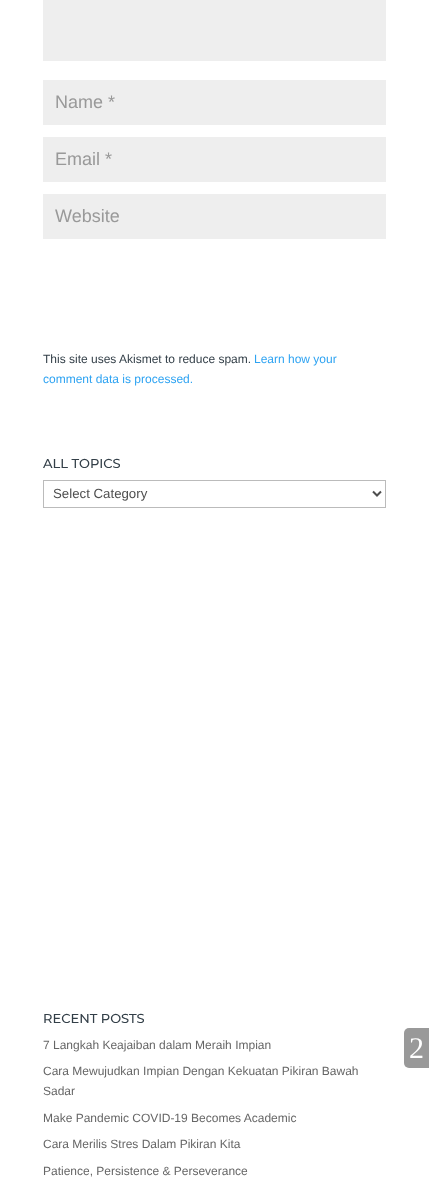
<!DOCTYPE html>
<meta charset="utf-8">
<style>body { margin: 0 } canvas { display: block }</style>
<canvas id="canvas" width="429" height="1193"></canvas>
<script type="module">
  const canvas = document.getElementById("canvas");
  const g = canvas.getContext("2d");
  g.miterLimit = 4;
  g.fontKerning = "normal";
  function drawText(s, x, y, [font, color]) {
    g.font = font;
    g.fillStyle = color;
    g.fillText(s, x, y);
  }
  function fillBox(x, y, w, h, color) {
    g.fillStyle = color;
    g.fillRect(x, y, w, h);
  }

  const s1 = ["18px Liberation Sans", "#999999"];
  const s2 = ["12px Liberation Sans", "#333F48"];
  const s3 = ["12px Liberation Sans", "#2EA3F2"];
  const s4 = ["500 13px Montserrat", "#333F48"];
  const s5 = ["13.25px Liberation Sans", "#4E4E4E"];
  const s6 = ["12px Liberation Sans", "#666666"];
  const s7 = ["30px Liberation Serif", "#FFFFFF"];

  fillBox(0, 0, 429, 1193, "#FFFFFF");
  fillBox(43, 0, 343, 61, "#EEEEEE");
  fillBox(43, 80, 343, 45, "#EEEEEE");
  drawText("Name *", 55, 108, s1);
  fillBox(43, 137, 343, 45, "#EEEEEE");
  drawText("Email *", 55, 165, s1);
  fillBox(43, 194, 343, 45, "#EEEEEE");
  drawText("Website", 55, 222, s1);
  drawText("This site uses Akismet to reduce spam.", 43, 363, s2);
  drawText("Learn how your", 254, 363, s3);
  drawText("comment data is processed.", 43, 383, s3);
  drawText("ALL TOPICS", 43, 468, s4);
  g.strokeStyle = "#BBBBBB";
  g.strokeRect(43.5, 480.5, 342, 27);
  g.beginPath();
  g.moveTo(373, 491.5);
  g.lineTo(377, 495.5);
  g.lineTo(381, 491.5);
  g.strokeStyle = "#4E4E4E";
  g.lineWidth = 2;
  g.stroke();
  drawText("Select Category", 53, 498, s5);
  drawText("RECENT POSTS", 43, 1023, s4);
  drawText("7 Langkah Keajaiban dalam Meraih Impian", 43, 1049, s6);
  drawText("Cara Mewujudkan Impian Dengan Kekuatan Pikiran Bawah", 43, 1075, s6);
  drawText("Sadar", 43, 1095, s6);
  drawText("Make Pandemic COVID-19 Becomes Academic", 43, 1122, s6);
  drawText("Cara Merilis Stres Dalam Pikiran Kita", 43, 1148, s6);
  drawText("Patience, Persistence & Perseverance", 43, 1175, s6);
  g.fillStyle = "#999999";
  g.beginPath();
  g.roundRect(404, 1028, 25, 40, [5, 0, 0, 5]);
  g.fill();
  drawText("2", 409, 1058, s7);
</script>
